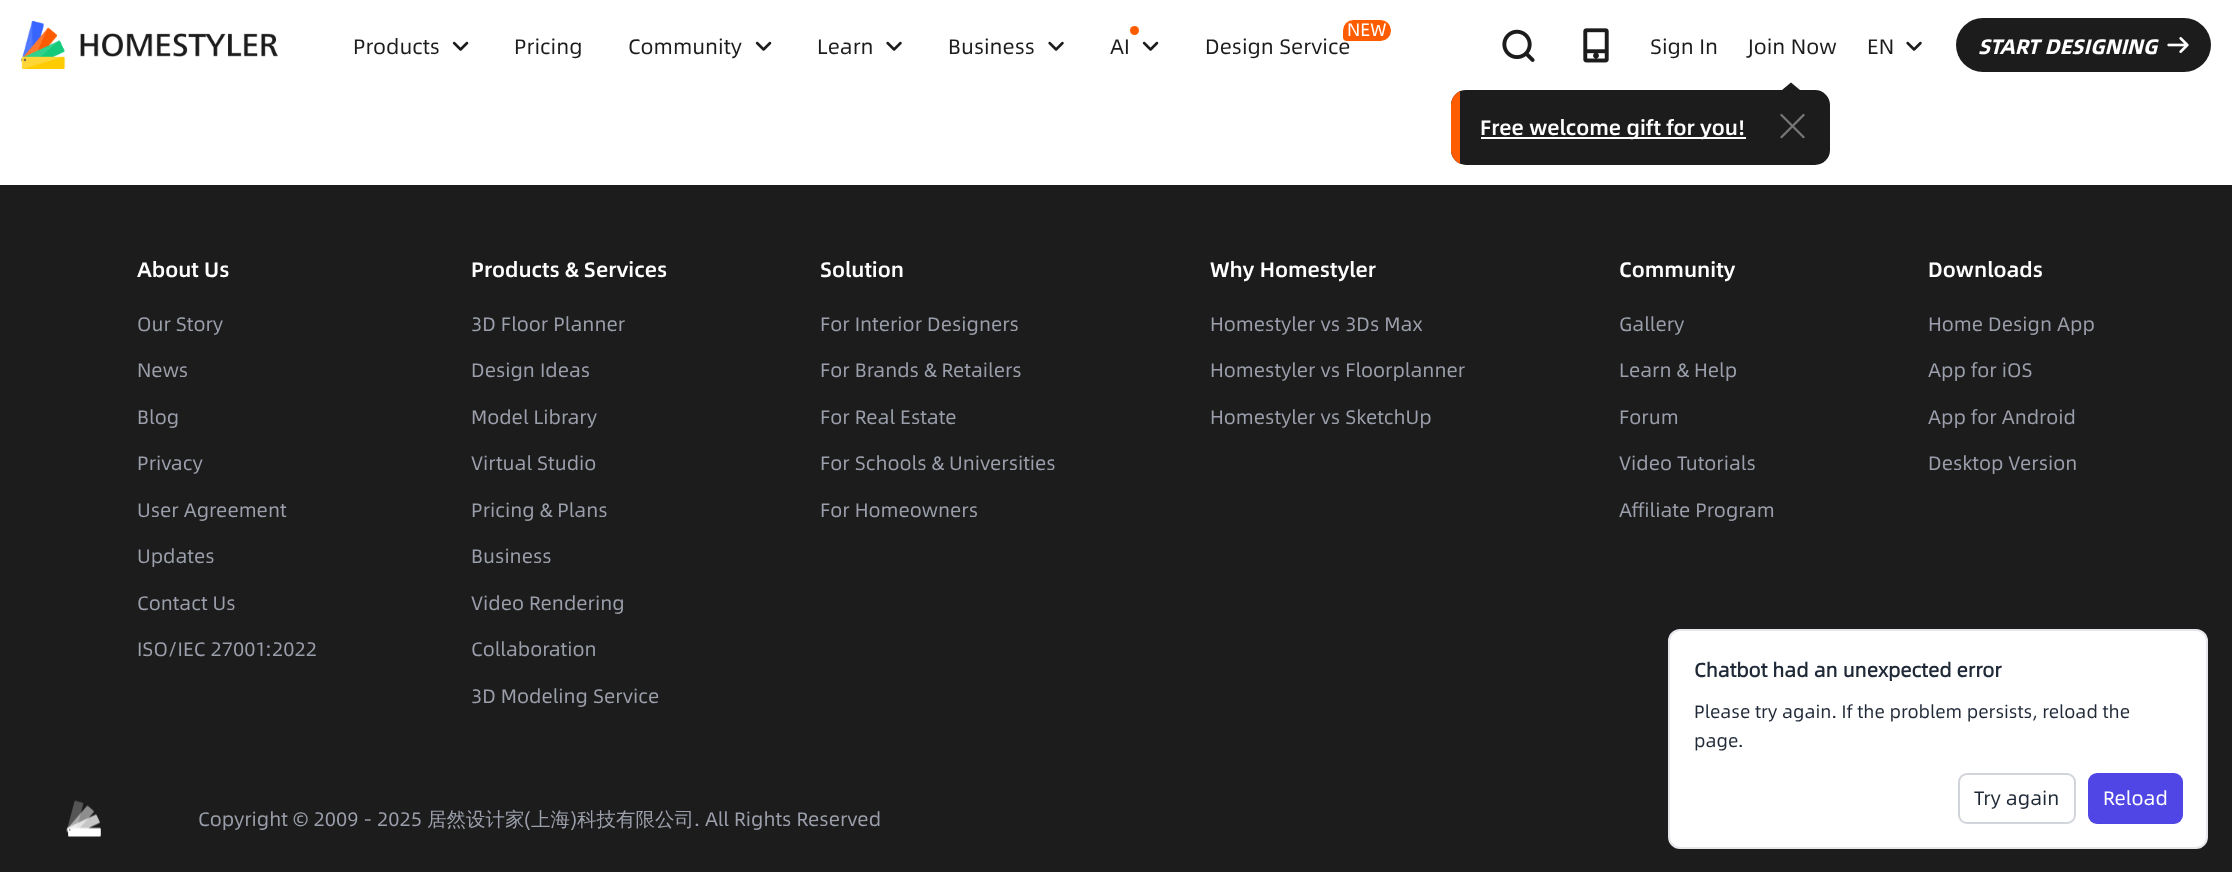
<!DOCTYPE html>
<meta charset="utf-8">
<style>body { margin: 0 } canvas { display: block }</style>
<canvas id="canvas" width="2232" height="872"></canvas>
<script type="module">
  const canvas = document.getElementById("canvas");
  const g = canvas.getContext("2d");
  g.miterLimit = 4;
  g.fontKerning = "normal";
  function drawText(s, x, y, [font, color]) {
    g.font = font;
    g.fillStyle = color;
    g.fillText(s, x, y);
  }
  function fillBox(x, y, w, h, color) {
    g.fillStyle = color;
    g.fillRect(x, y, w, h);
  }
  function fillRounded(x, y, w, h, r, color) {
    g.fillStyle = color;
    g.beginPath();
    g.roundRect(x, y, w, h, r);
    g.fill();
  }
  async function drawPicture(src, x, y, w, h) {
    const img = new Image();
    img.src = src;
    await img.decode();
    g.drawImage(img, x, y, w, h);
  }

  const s1 = ["21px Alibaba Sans", "#1C1C1C"];
  const s2 = ["18px Alibaba Sans", "#FFFFFF"];
  const s3 = ["500 21px Alibaba Sans", "#FFFFFF"];
  const s4 = ["italic bold 21px Alibaba Sans", "#FFFFFF"];
  const s5 = ["19.5px Alibaba Sans", "#9B9FAB"];
  const s6 = ["500 19.5px WenQuanYi Zen Hei", "#9B9FAB"];
  const s7 = ["bold 19.5px Alibaba Sans", "#1F2937"];
  const s8 = ["18px Alibaba Sans", "#1F2937"];
  const s9 = ["19.5px Alibaba Sans", "#1F2937"];
  const s10 = ["19.5px Alibaba Sans", "#FFFFFF"];

  fillBox(0, 0, 2232, 872, "#FFFFFF");
  await drawPicture("pic1.png", 21, 21, 257, 48);
  drawText("Products", 353, 54, s1);
  await drawPicture("pic2.png", 452, 41, 17, 10);
  drawText("Pricing", 514, 54, s1);
  drawText("Community", 628, 54, s1);
  await drawPicture("pic2.png", 755, 41, 17, 10);
  drawText("Learn", 817, 54, s1);
  await drawPicture("pic3.png", 886, 41, 16, 10);
  drawText("Business", 948, 54, s1);
  await drawPicture("pic3.png", 1048, 41, 16, 10);
  g.fillStyle = "#FF5C00";
  g.beginPath();
  g.arc(1134.5, 30.5, 4.5, 0, Math.PI * 2);
  g.fill();
  drawText("AI", 1110, 54, s1);
  await drawPicture("pic2.png", 1142, 41, 17, 10);
  drawText("Design Service", 1205, 54, s1);
  g.fillStyle = "#FF5C00";
  g.beginPath();
  g.roundRect(1343, 20, 48, 21, [10.5, 10.5, 10.5, 4]);
  g.fill();
  drawText("NEW", 1347, 36, s2);
  await drawPicture("pic4.png", 1502, 29, 33, 33);
  await drawPicture("pic5.png", 1583, 28, 26, 35);
  drawText("Join Now", 1748, 54, s1);
  g.beginPath();
  g.moveTo(1800, 90);
  g.lineTo(1782, 90);
  g.lineTo(1791, 82.5);
  g.closePath();
  g.fill();
  fillRounded(1451, 90, 379, 75, 15, "#1C1C1C");
  g.save();
  g.beginPath();
  g.roundRect(1451, 90, 379, 75, 15);
  g.clip();
  fillBox(1451, 91, 9, 73, "#FF5C00");
  g.restore();
  fillBox(1481, 137, 265, 2, "#FFFFFF");
  drawText("Free welcome gift for you!", 1480, 135, s3);
  await drawPicture("pic6.png", 1780, 113, 25, 26);
  drawText("Sign In", 1650, 54, s1);
  drawText("EN", 1867, 54, s1);
  await drawPicture("pic3.png", 1906, 41, 16, 10);
  fillRounded(1956, 18, 255, 54, 27, "#1C1C1C");
  drawText("START DESIGNING", 1978, 54, s4);
  await drawPicture("pic7.png", 2167, 37, 22, 16);
  fillBox(0, 185, 2232, 687, "#1C1C1C");
  drawText("About Us", 137, 277, s3);
  drawText("Our Story", 137, 331, s5);
  drawText("News", 137, 377, s5);
  drawText("Blog", 137, 424, s5);
  drawText("Privacy", 137, 470, s5);
  drawText("User Agreement", 137, 517, s5);
  drawText("Updates", 137, 563, s5);
  drawText("Contact Us", 137, 610, s5);
  drawText("ISO/IEC 27001:2022", 137, 656, s5);
  drawText("Products & Services", 471, 277, s3);
  drawText("3D Floor Planner", 471, 331, s5);
  drawText("Design Ideas", 471, 377, s5);
  drawText("Model Library", 471, 424, s5);
  drawText("Virtual Studio", 471, 470, s5);
  drawText("Pricing & Plans", 471, 517, s5);
  drawText("Business", 471, 563, s5);
  drawText("Video Rendering", 471, 610, s5);
  drawText("Collaboration", 471, 656, s5);
  drawText("3D Modeling Service", 471, 703, s5);
  drawText("Solution", 820, 277, s3);
  drawText("For Interior Designers", 820, 331, s5);
  drawText("For Brands & Retailers", 820, 377, s5);
  drawText("For Real Estate", 820, 424, s5);
  drawText("For Schools & Universities", 820, 470, s5);
  drawText("For Homeowners", 820, 517, s5);
  drawText("Why Homestyler", 1210, 277, s3);
  drawText("Homestyler vs 3Ds Max", 1210, 331, s5);
  drawText("Homestyler vs Floorplanner", 1210, 377, s5);
  drawText("Homestyler vs SketchUp", 1210, 424, s5);
  drawText("Community", 1619, 277, s3);
  drawText("Gallery", 1619, 331, s5);
  drawText("Learn & Help", 1619, 377, s5);
  drawText("Forum", 1619, 424, s5);
  drawText("Video Tutorials", 1619, 470, s5);
  drawText("Affiliate Program", 1619, 517, s5);
  drawText("Downloads", 1928, 277, s3);
  drawText("Home Design App", 1928, 331, s5);
  drawText("App for iOS", 1928, 377, s5);
  drawText("App for Android", 1928, 424, s5);
  drawText("Desktop Version", 1928, 470, s5);
  await drawPicture("pic8.png", 66, 800, 35, 37);
  drawText("Copyright © 2009 - 2025", 198, 826, s5);
  drawText("居然设计家", 427, 826, s6);
  drawText("(", 524, 826, s5);
  drawText("上海", 531, 826, s6);
  drawText(")", 570, 826, s5);
  drawText("科技有限公司", 577, 826, s6);
  drawText(". All Rights Reserved", 694, 826, s5);
  g.fillStyle = "#FFFFFF";
  g.beginPath();
  g.roundRect(1669, 630, 538, 218, 11);
  g.fill();
  g.strokeStyle = "#E5E7EB";
  g.lineWidth = 2;
  g.stroke();
  drawText("Chatbot had an unexpected error", 1694, 677, s7);
  drawText("Please try again. If the problem persists, reload the", 1694, 718, s8);
  drawText("page.", 1694, 747, s8);
  g.beginPath();
  g.roundRect(1959, 774, 116, 49, 8);
  g.strokeStyle = "#D1D5DB";
  g.stroke();
  drawText("Try again", 1974, 805, s9);
  fillRounded(2088, 773, 95, 51, 9, "#4F46E5");
  drawText("Reload", 2103, 805, s10);
</script>
